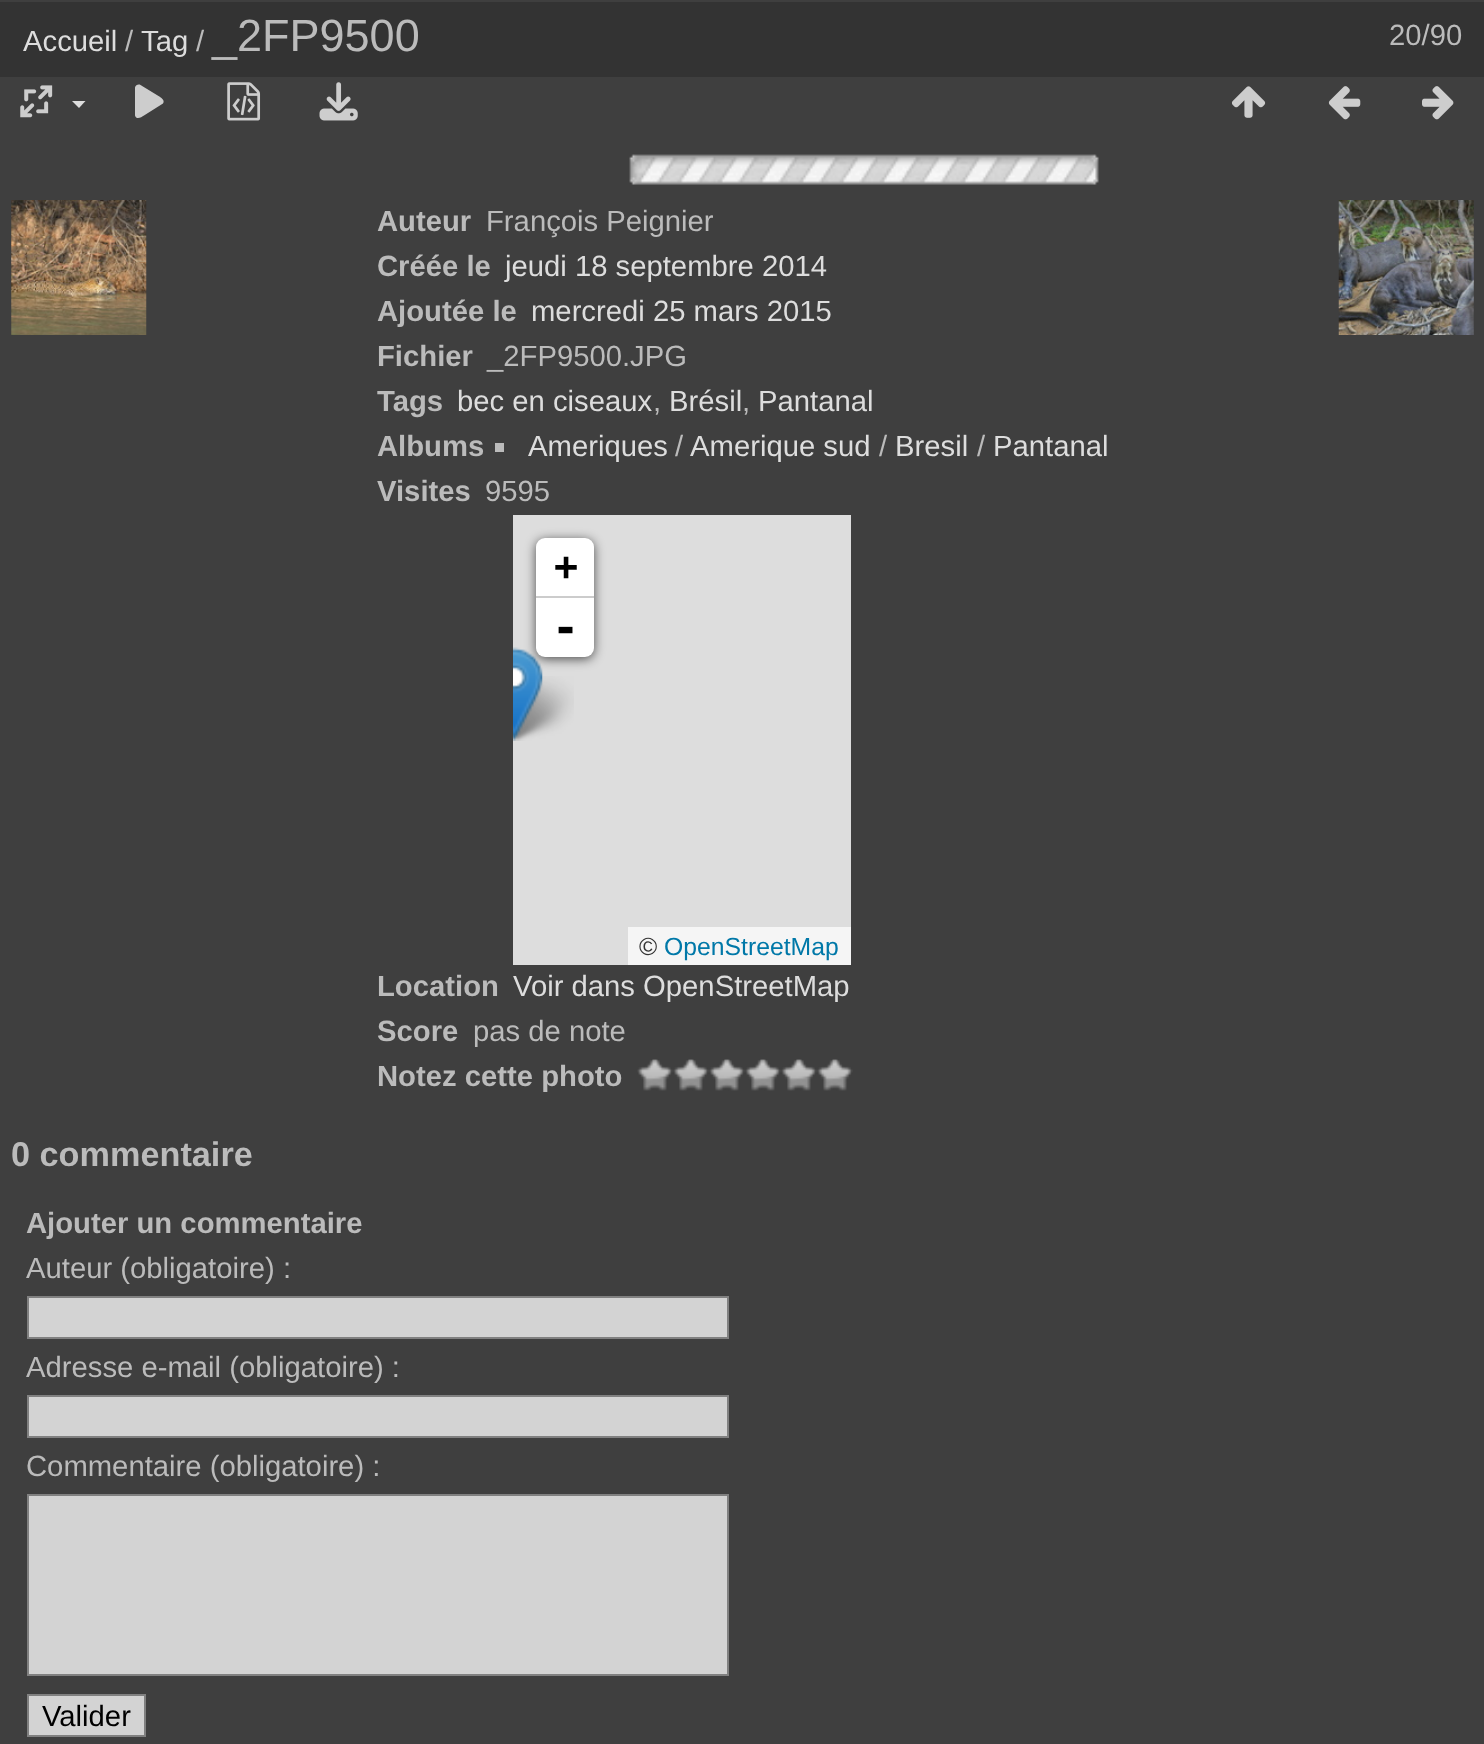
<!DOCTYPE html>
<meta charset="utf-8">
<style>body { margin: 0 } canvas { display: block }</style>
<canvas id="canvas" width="1484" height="1744"></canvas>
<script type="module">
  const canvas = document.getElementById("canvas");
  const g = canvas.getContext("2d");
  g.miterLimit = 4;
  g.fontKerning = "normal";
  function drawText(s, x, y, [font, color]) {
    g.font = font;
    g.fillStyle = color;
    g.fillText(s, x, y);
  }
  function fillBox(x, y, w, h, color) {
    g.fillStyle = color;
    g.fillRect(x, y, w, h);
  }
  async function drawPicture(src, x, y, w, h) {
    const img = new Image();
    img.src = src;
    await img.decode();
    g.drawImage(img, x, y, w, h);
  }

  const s1 = ["29.25px Liberation Sans", "#DDDDDD"];
  const s2 = ["29.25px Liberation Sans", "#BBBBBB"];
  const s3 = ["45px Liberation Sans", "#BBBBBB"];
  const s4 = ["bold 29.25px Liberation Sans", "#BBBBBB"];
  const s5 = ["bold 40px DejaVu Sans Mono", "#000000"];
  const s6 = ["bold 45px DejaVu Sans Mono", "#000000"];
  const s7 = ["24.75px Liberation Sans", "#333333"];
  const s8 = ["24.75px Liberation Sans", "#0078A8"];
  const s9 = ["bold 34.25px Liberation Sans", "#BBBBBB"];
  const s10 = ["29.25px Liberation Sans", "#000000"];

  fillBox(0, 0, 1484, 1744, "#3F3F3F");
  fillBox(0, 2, 1484, 75, "#333333");
  drawText("Accueil", 23, 51, s1);
  drawText("/", 125, 51, s2);
  drawText("Tag", 141, 51, s1);
  drawText("/", 196, 51, s2);
  drawText("_2FP9500", 212, 51, s3);
  drawText("20/90", 1389, 45, s2);
  await drawPicture("pic1.png", 20, 85, 33, 33);
  g.fillStyle = "#DDDDDD";
  g.beginPath();
  g.moveTo(72, 101);
  g.lineTo(85.5, 101);
  g.lineTo(79, 108);
  g.closePath();
  g.fill();
  g.fillStyle = "#CDCDCD";
  g.beginPath();
  g.moveTo(140.5, 85);
  g.bezierCurveTo(138.5, 84, 135.5, 85, 135, 87.5);
  g.lineTo(135, 115.5);
  g.bezierCurveTo(136.5, 120.5, 141.5, 117, 144, 115.5);
  g.lineTo(163, 103.5);
  g.bezierCurveTo(165.5, 100, 160.5, 97.5, 158.5, 96);
  g.closePath();
  g.fill();
  await drawPicture("pic2.png", 227, 82, 34, 39);
  await drawPicture("pic3.png", 319, 82, 39, 39);
  await drawPicture("pic4.png", 1231, 86, 35, 32);
  await drawPicture("pic5.png", 1328, 86, 33, 34);
  await drawPicture("pic6.png", 1422, 86, 32, 34);
  await drawPicture("pic7.png", 629, 154, 470, 31);
  await drawPicture("pic8.png", 11, 200, 136, 135);
  await drawPicture("pic9.png", 1338, 200, 136, 135);
  drawText("Auteur", 377, 231, s4);
  drawText("François Peignier", 486, 231, s2);
  drawText("Créée le", 377, 276, s4);
  drawText("jeudi 18 septembre 2014", 505, 276, s1);
  drawText("Ajoutée le", 377, 321, s4);
  drawText("mercredi 25 mars 2015", 531, 321, s1);
  drawText("Fichier", 377, 366, s4);
  drawText("_2FP9500.JPG", 487, 366, s2);
  drawText("Tags", 377, 411, s4);
  drawText("bec en ciseaux", 457, 411, s1);
  drawText(",", 653, 411, s2);
  drawText("Brésil", 669, 411, s1);
  drawText(",", 742, 411, s2);
  drawText("Pantanal", 758, 411, s1);
  drawText("Albums", 377, 456, s4);
  fillBox(495, 443, 9, 9, "#BBBBBB");
  drawText("Ameriques", 528, 456, s1);
  drawText("/", 675, 456, s2);
  drawText("Amerique sud", 690, 456, s1);
  drawText("/", 879, 456, s2);
  drawText("Bresil", 895, 456, s1);
  drawText("/", 977, 456, s2);
  drawText("Pantanal", 993, 456, s1);
  drawText("Visites", 377, 501, s4);
  drawText("9595", 485, 501, s2);
  drawText("Location", 377, 996, s4);
  fillBox(513, 515, 338, 450, "#DDDDDD");
  await drawPicture("pic11.png", 513, 676, 61, 65);
  await drawPicture("pic10.png", 513, 647, 30, 94);
  g.fillStyle = "rgba(0, 0, 0, 0.65)";
  g.filter = "blur(5.5px)";
  g.beginPath();
  g.roundRect(536, 540, 58, 119, 9);
  g.fill();
  g.filter = "none";
  g.fillStyle = "#FFFFFF";
  g.beginPath();
  g.roundRect(536, 538, 58, 61, [9, 9, 0, 0]);
  g.fill();
  fillBox(536, 596, 58, 2, "#CCCCCC");
  drawText("+", 554, 580, s5);
  g.fillStyle = "#FFFFFF";
  g.beginPath();
  g.roundRect(536, 599, 58, 58, [0, 0, 9, 9]);
  g.fill();
  drawText("-", 552, 643, s6);
  fillBox(628, 927, 223, 38, "#F5F5F5");
  drawText("©", 639, 955, s7);
  drawText("OpenStreetMap", 664, 955, s8);
  drawText("Voir dans OpenStreetMap", 513, 996, s1);
  drawText("Score", 377, 1041, s4);
  drawText("pas de note", 473, 1041, s2);
  drawText("Notez cette photo", 377, 1086, s4);
  await drawPicture("pic12.png", 637, 1059, 36, 32);
  await drawPicture("pic12.png", 673, 1059, 36, 32);
  await drawPicture("pic12.png", 709, 1059, 36, 32);
  await drawPicture("pic13.png", 745, 1059, 36, 32);
  await drawPicture("pic12.png", 781, 1059, 36, 32);
  await drawPicture("pic14.png", 817, 1059, 36, 32);
  drawText("0 commentaire", 11, 1166, s9);
  drawText("Ajouter un commentaire", 26, 1233, s4);
  drawText("Auteur (obligatoire) :", 26, 1278, s2);
  g.fillStyle = "#D3D3D3";
  g.beginPath();
  g.rect(28, 1297, 700, 41);
  g.fill();
  g.strokeStyle = "#808080";
  g.lineWidth = 2;
  g.stroke();
  drawText("Adresse e-mail (obligatoire) :", 26, 1377, s2);
  g.fillStyle = "#D3D3D3";
  g.beginPath();
  g.rect(28, 1396, 700, 41);
  g.fill();
  g.stroke();
  drawText("Commentaire (obligatoire) :", 26, 1476, s2);
  g.fillStyle = "#D3D3D3";
  g.beginPath();
  g.rect(28, 1495, 700, 180);
  g.fill();
  g.stroke();
  g.beginPath();
  g.rect(28, 1695, 117, 41);
  g.fill();
  g.stroke();
  drawText("Valider", 42, 1726, s10);
</script>
